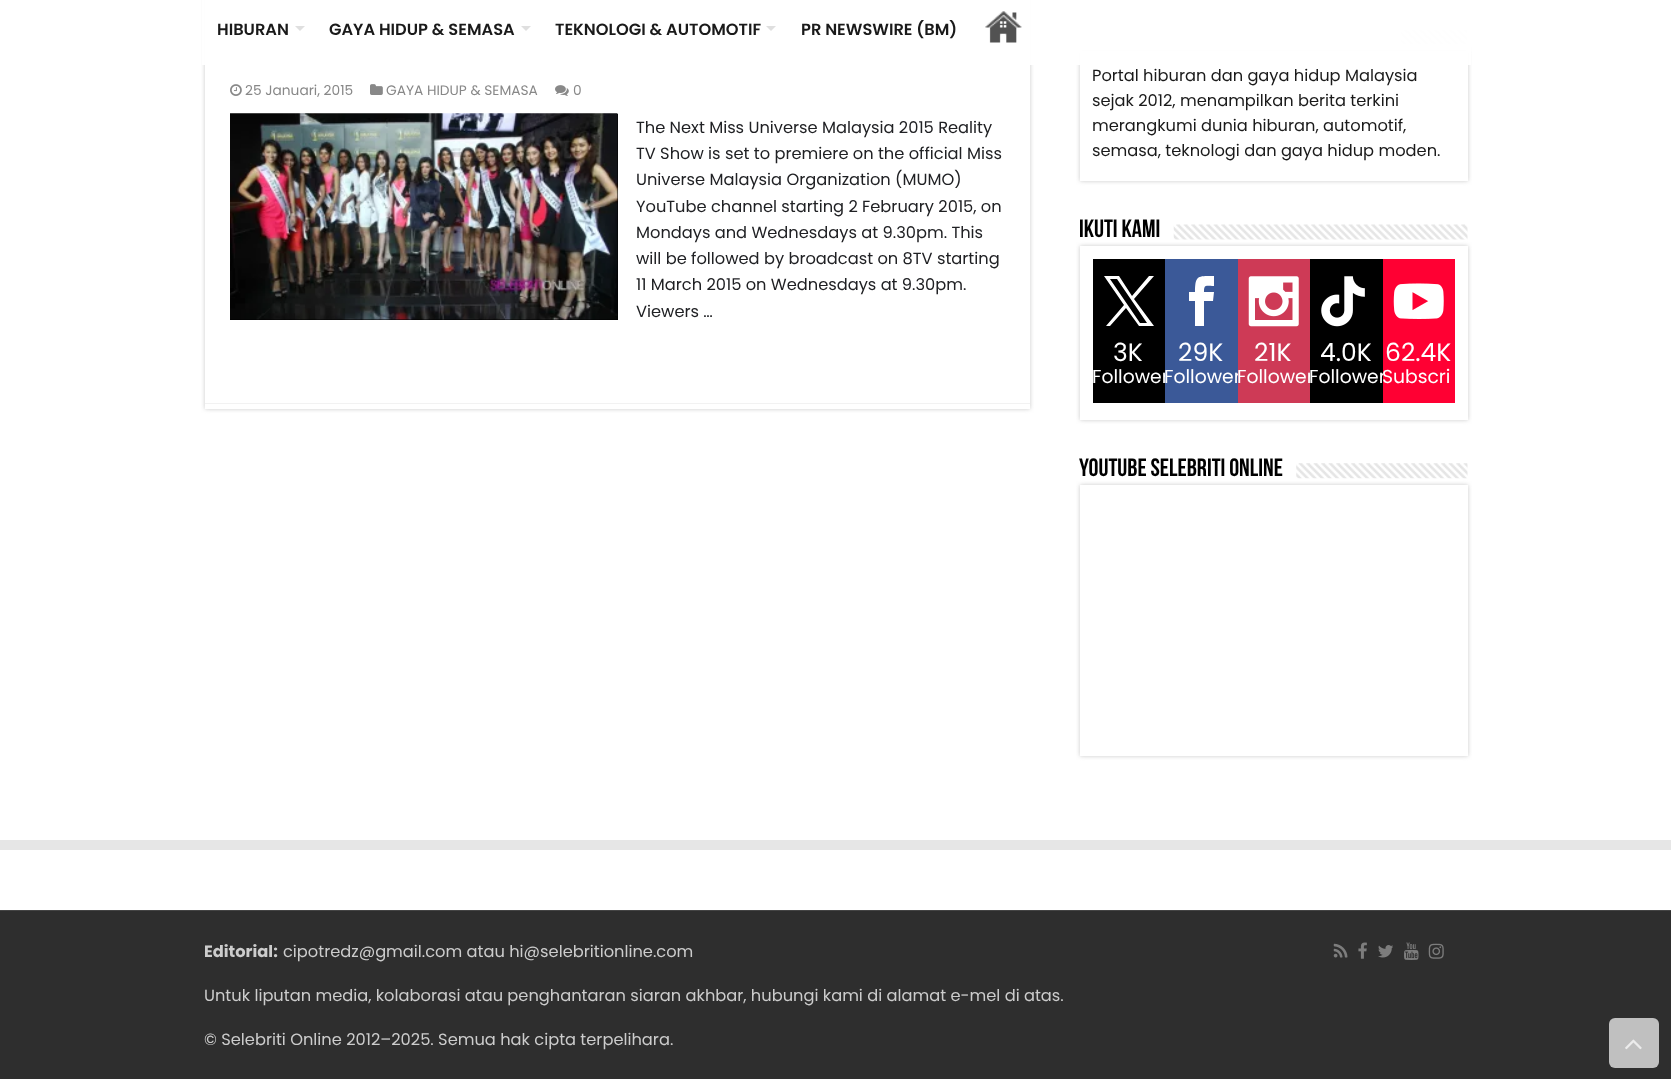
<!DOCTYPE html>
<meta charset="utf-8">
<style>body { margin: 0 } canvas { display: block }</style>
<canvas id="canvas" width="1671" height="1079"></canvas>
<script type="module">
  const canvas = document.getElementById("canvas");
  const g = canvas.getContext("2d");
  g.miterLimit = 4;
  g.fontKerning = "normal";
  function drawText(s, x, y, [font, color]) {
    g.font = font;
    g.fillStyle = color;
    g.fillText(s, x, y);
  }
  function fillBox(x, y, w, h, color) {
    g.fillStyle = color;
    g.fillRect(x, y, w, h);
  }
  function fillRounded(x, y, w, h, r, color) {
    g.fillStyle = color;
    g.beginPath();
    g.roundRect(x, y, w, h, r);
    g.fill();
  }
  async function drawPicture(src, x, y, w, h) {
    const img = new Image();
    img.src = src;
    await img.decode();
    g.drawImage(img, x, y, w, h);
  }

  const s1 = ["600 16.25px Poppins", "#1A1A1A"];
  const s2 = ["13.75px Poppins", "#888888"];
  const s3 = ["16.25px Poppins", "#202124"];
  const s4 = ["16.25px Poppins", "#1A1A1A"];
  const s5 = ["bold 25px Bebas Neue", "#000000"];
  const s6 = ["25px Poppins", "#FFFFFF"];
  const s7 = ["18.75px Poppins", "#FFFFFF"];
  const s8 = ["bold 16.25px Poppins", "#CCCCCC"];
  const s9 = ["16.25px Poppins", "#CCCCCC"];

  fillBox(0, 0, 1671, 1079, "#FFFFFF");
  g.fillStyle = "#CACACA";
  g.filter = "blur(2px)";
  g.beginPath();
  g.rect(205, -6, 825, 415);
  g.fill();
  g.filter = "none";
  fillBox(205, 0, 825, 409, "#FFFFFF");
  g.fillStyle = "#CACACA";
  g.filter = "blur(2px)";
  g.beginPath();
  g.rect(1080, 51, 388, 130);
  g.fill();
  g.filter = "none";
  await drawPicture("pic6.png", 1401, 29, 67, 16);
  fillBox(1080, 51, 388, 130, "#FFFFFF");
  fillBox(202, 0, 1269, 65, "rgba(255, 255, 255, 0.95)");
  drawText("HIBURAN", 217, 35, s1);
  g.fillStyle = "rgba(221, 221, 221, 0.95)";
  g.beginPath();
  g.moveTo(295, 26);
  g.lineTo(305, 26);
  g.lineTo(300, 31);
  g.closePath();
  g.fill();
  drawText("GAYA HIDUP & SEMASA", 329, 35, s1);
  g.fillStyle = "rgba(221, 221, 221, 0.95)";
  g.beginPath();
  g.moveTo(521, 26);
  g.lineTo(531, 26);
  g.lineTo(526, 31);
  g.closePath();
  g.fill();
  drawText("TEKNOLOGI & AUTOMOTIF", 555, 35, s1);
  g.fillStyle = "rgba(221, 221, 221, 0.95)";
  g.beginPath();
  g.moveTo(766, 26);
  g.lineTo(776, 26);
  g.lineTo(771, 31);
  g.closePath();
  g.fill();
  drawText("PR NEWSWIRE (BM)", 801, 35, s1);
  await drawPicture("pic1.png", 985, 11, 37, 32);
  fillBox(205, 403, 825, 1, "#F2F2F2");
  await drawPicture("pic2.png", 230, 84, 12, 12);
  drawText("25 Januari, 2015", 245, 95, s2);
  await drawPicture("pic3.png", 370, 84, 13, 11);
  drawText("GAYA HIDUP & SEMASA", 386, 95, s2);
  await drawPicture("pic4.png", 555, 85, 14, 11);
  drawText("0", 573, 95, s2);
  fillBox(230, 114, 388, 206, "#000000");
  await drawPicture("pic5.png", 230, 113, 388, 207);
  drawText("The Next Miss Universe Malaysia 2015 Reality", 636, 133, s3);
  drawText("TV Show is set to premiere on the official Miss", 636, 159, s3);
  drawText("Universe Malaysia Organization (MUMO)", 636, 185, s3);
  drawText("YouTube channel starting 2 February 2015, on", 636, 212, s3);
  drawText("Mondays and Wednesdays at 9.30pm. This", 636, 238, s3);
  drawText("will be followed by broadcast on 8TV starting", 636, 264, s3);
  drawText("11 March 2015 on Wednesdays at 9.30pm.", 636, 290, s3);
  drawText("Viewers …", 636, 317, s3);
  drawText("Portal hiburan dan gaya hidup Malaysia", 1092, 81, s4);
  drawText("sejak 2012, menampilkan berita terkini", 1092, 106, s4);
  drawText("merangkumi dunia hiburan, automotif,", 1092, 131, s4);
  drawText("semasa, teknologi dan gaya hidup moden.", 1092, 156, s4);
  drawText("Ikuti kami", 1079, 237, s5);
  g.fillStyle = "#CACACA";
  g.filter = "blur(2px)";
  g.beginPath();
  g.rect(1080, 246, 388, 174);
  g.fill();
  g.filter = "none";
  await drawPicture("pic7.png", 1173, 224, 295, 16);
  fillBox(1080, 246, 388, 174, "#FFFFFF");
  fillBox(1093, 259, 72, 144, "#000000");
  g.fillStyle = "#FFFFFF";
  g.beginPath();
  g.moveTo(1154, 326);
  g.lineTo(1134, 299);
  g.lineTo(1154, 276);
  g.lineTo(1149, 276);
  g.lineTo(1132, 296);
  g.lineTo(1119, 276);
  g.lineTo(1104, 276);
  g.lineTo(1124, 305);
  g.lineTo(1106, 326);
  g.lineTo(1110, 326);
  g.lineTo(1126, 308);
  g.lineTo(1139, 326);
  g.closePath();
  g.moveTo(1147, 323);
  g.lineTo(1140, 323);
  g.lineTo(1110, 279);
  g.lineTo(1117, 279);
  g.closePath();
  g.fill();
  drawText("3K", 1113, 361, s6);
  drawText("Follower", 1092, 383, s7);
  fillBox(1165, 259, 73, 144, "#3B5998");
  g.fillStyle = "#FFFFFF";
  g.beginPath();
  g.moveTo(1204, 326);
  g.lineTo(1195, 326);
  g.lineTo(1195, 301);
  g.lineTo(1189, 301);
  g.lineTo(1189, 292);
  g.lineTo(1195, 292);
  g.bezierCurveTo(1195, 275, 1198, 276, 1214, 276);
  g.lineTo(1214, 286);
  g.bezierCurveTo(1206, 286, 1204, 284, 1204, 292);
  g.lineTo(1214, 292);
  g.lineTo(1213, 301);
  g.lineTo(1204, 301);
  g.closePath();
  g.fill();
  drawText("29K", 1178, 361, s6);
  drawText("Follower", 1164, 383, s7);
  fillBox(1238, 259, 72, 144, "#CE3A56");
  await drawPicture("pic8.png", 1248, 276, 51, 51);
  drawText("21K", 1254, 361, s6);
  drawText("Follower", 1237, 383, s7);
  fillBox(1310, 259, 73, 144, "#000000");
  await drawPicture("pic9.png", 1321, 276, 44, 51);
  drawText("4.0K", 1320, 361, s6);
  drawText("Follower", 1309, 383, s7);
  fillBox(1383, 259, 72, 144, "#FF0033");
  await drawPicture("pic10.png", 1393, 283, 51, 36);
  drawText("62.4K", 1385, 361, s6);
  drawText("Subscri", 1382, 383, s7);
  drawText("YouTube selebriti online", 1079, 476, s5);
  g.fillStyle = "#CACACA";
  g.filter = "blur(2px)";
  g.beginPath();
  g.rect(1080, 485, 388, 271);
  g.fill();
  g.filter = "none";
  await drawPicture("pic11.png", 1296, 463, 172, 16);
  fillBox(1080, 485, 388, 271, "#FFFFFF");
  fillBox(0, 840, 1671, 10, "#E6E6E6");
  fillBox(0, 911, 1671, 168, "#2E2E2E");
  fillBox(0, 910, 1671, 1, "#444444");
  drawText("Editorial:", 204, 957, s8);
  drawText("cipotredz@gmail.com atau hi@selebritionline.com", 283, 957, s9);
  drawText("Untuk liputan media, kolaborasi atau penghantaran siaran akhbar, hubungi kami di alamat e-mel di atas.", 204, 1001, s9);
  drawText("© Selebriti Online 2012–2025. Semua hak cipta terpelihara.", 204, 1045, s9);
  await drawPicture("pic12.png", 1333, 943, 15, 15);
  await drawPicture("pic13.png", 1358, 942, 9, 17);
  await drawPicture("pic14.png", 1378, 945, 15, 13);
  await drawPicture("pic15.png", 1404, 942, 15, 18);
  await drawPicture("pic16.png", 1428, 943, 16, 16);
  fillRounded(1609, 1018, 50, 50, 6, "#C0C0C0");
  await drawPicture("pic17.png", 1625, 1039, 17, 11);
</script>
